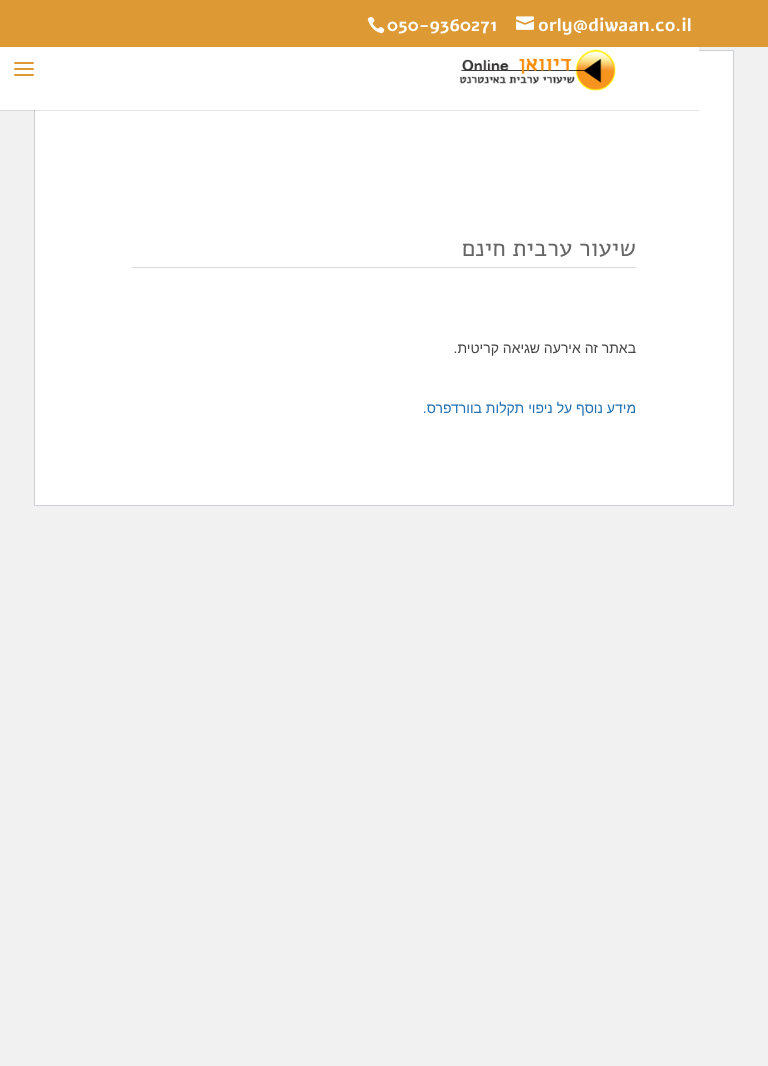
<!DOCTYPE html>
<meta charset="utf-8">
<style>body { margin: 0 } canvas { display: block }</style>
<canvas id="canvas" width="768" height="1066"></canvas>
<script type="module">
  const canvas = document.getElementById("canvas");
  const g = canvas.getContext("2d");
  g.miterLimit = 4;
  g.fontKerning = "normal";
  function drawText(s, x, y, [font, color]) {
    g.font = font;
    g.fillStyle = color;
    g.fillText(s, x, y);
  }
  function fillBox(x, y, w, h, color) {
    g.fillStyle = color;
    g.fillRect(x, y, w, h);
  }
  async function drawPicture(src, x, y, w, h) {
    const img = new Image();
    img.src = src;
    await img.decode();
    g.drawImage(img, x, y, w, h);
  }

  const s1 = ["bold 18px Alef", "#FFFFFF"];
  const s2 = ["24px Alef", "#666666"];
  const s3 = ["14px Liberation Sans", "#444444"];
  const s4 = ["14px Liberation Sans", "#2271B1"];

  fillBox(0, 0, 768, 1066, "#F1F1F1");
  g.fillStyle = "#FFFFFF";
  g.beginPath();
  g.rect(34.5, 50.5, 699, 455);
  g.fill();
  g.strokeStyle = "#CCD0D4";
  g.stroke();
  fillBox(0, 0, 768, 47, "#DD9933");
  drawText("orly@diwaan.co.il", 538, 31, s1);
  await drawPicture("pic1.png", 516, 16, 18, 14);
  drawText("050-9360271", 387, 31, s1);
  await drawPicture("pic2.png", 367, 16, 18, 18);
  fillBox(0, 110, 699, 1, "rgba(0, 0, 0, 0.1)");
  fillBox(0, 47, 699, 63, "#FFFFFF");
  await drawPicture("pic3.png", 459, 49, 157, 42);
  await drawPicture("pic4.png", 14, 62, 20, 14);
  fillBox(132, 267, 504, 1, "#DADADA");
  g.direction = "rtl";
  drawText("שיעור ערבית חינם", 636, 256, s2);
  drawText("באתר זה אירעה שגיאה קריטית.", 636, 353, s3);
  drawText("מידע נוסף על ניפוי תקלות בוורדפרס.", 636, 413, s4);
</script>
